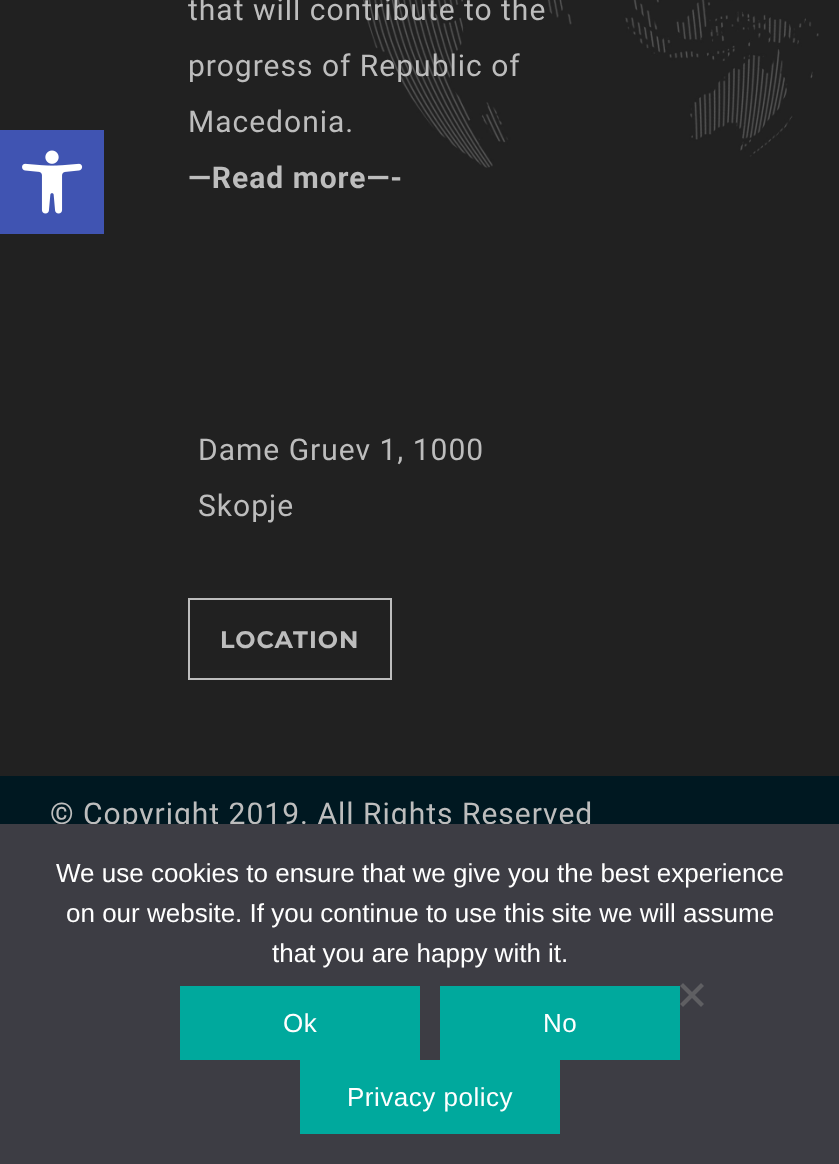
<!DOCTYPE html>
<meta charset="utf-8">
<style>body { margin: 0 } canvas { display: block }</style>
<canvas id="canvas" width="839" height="1164"></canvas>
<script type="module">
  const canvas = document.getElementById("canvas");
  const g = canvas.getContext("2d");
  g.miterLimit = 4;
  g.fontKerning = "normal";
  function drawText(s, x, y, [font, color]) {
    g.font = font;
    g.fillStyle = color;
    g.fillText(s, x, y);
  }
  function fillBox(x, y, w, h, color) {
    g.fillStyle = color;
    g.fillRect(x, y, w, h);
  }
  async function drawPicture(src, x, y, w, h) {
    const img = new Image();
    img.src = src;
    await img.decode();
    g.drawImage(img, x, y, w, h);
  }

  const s1 = ["30px Roboto", "#BDBDBD"];
  const s2 = ["bold 30px Roboto", "#BDBDBD"];
  const s3 = ["bold 24px Montserrat", "#BDBDBD"];
  const s4 = ["26px Liberation Sans", "#FFFFFF"];

  fillBox(0, 0, 839, 1164, "#212121");
  await drawPicture("pic1.png", 363, 0, 456, 168);
  g.letterSpacing = "1px";
  drawText("that will contribute to the", 188, 20, s1);
  drawText("progress of Republic of", 188, 76, s1);
  drawText("Macedonia.", 188, 132, s1);
  drawText("—Read more—-", 188, 188, s2);
  drawText("Dame Gruev 1, 1000", 198, 460, s1);
  drawText("Skopje", 198, 516, s1);
  g.strokeStyle = "#BDBDBD";
  g.lineWidth = 2;
  g.strokeRect(189, 599, 202, 80);
  drawText("LOCATION", 220, 648, s3);
  fillBox(0, 776, 839, 48, "#001821");
  drawText("© Copyright 2019. All Rights Reserved", 50, 824, s1);
  fillBox(0, 824, 839, 340, "#3D3D44");
  g.letterSpacing = "0px";
  drawText("We use cookies to ensure that we give you the best experience", 56, 882, s4);
  drawText("on our website. If you continue to use this site we will assume", 66, 922, s4);
  drawText("that you are happy with it.", 272, 962, s4);
  g.fillStyle = "#5F5F62";
  g.beginPath();
  g.moveTo(701, 983);
  g.lineTo(704, 986);
  g.lineTo(683, 1007);
  g.lineTo(680, 1004);
  g.closePath();
  g.fill();
  g.beginPath();
  g.moveTo(680, 986);
  g.lineTo(683, 983);
  g.lineTo(704, 1004);
  g.lineTo(701, 1007);
  g.closePath();
  g.fill();
  fillBox(180, 986, 240, 74, "#00A99D");
  g.letterSpacing = "0.5px";
  drawText("Ok", 283, 1032, s4);
  fillBox(440, 986, 240, 74, "#00A99D");
  drawText("No", 543, 1032, s4);
  fillBox(300, 1060, 260, 74, "#00A99D");
  drawText("Privacy policy", 347, 1106, s4);
  fillBox(0, 130, 104, 104, "#4054B2");
  await drawPicture("pic2.png", 22, 150, 61, 64);
</script>
